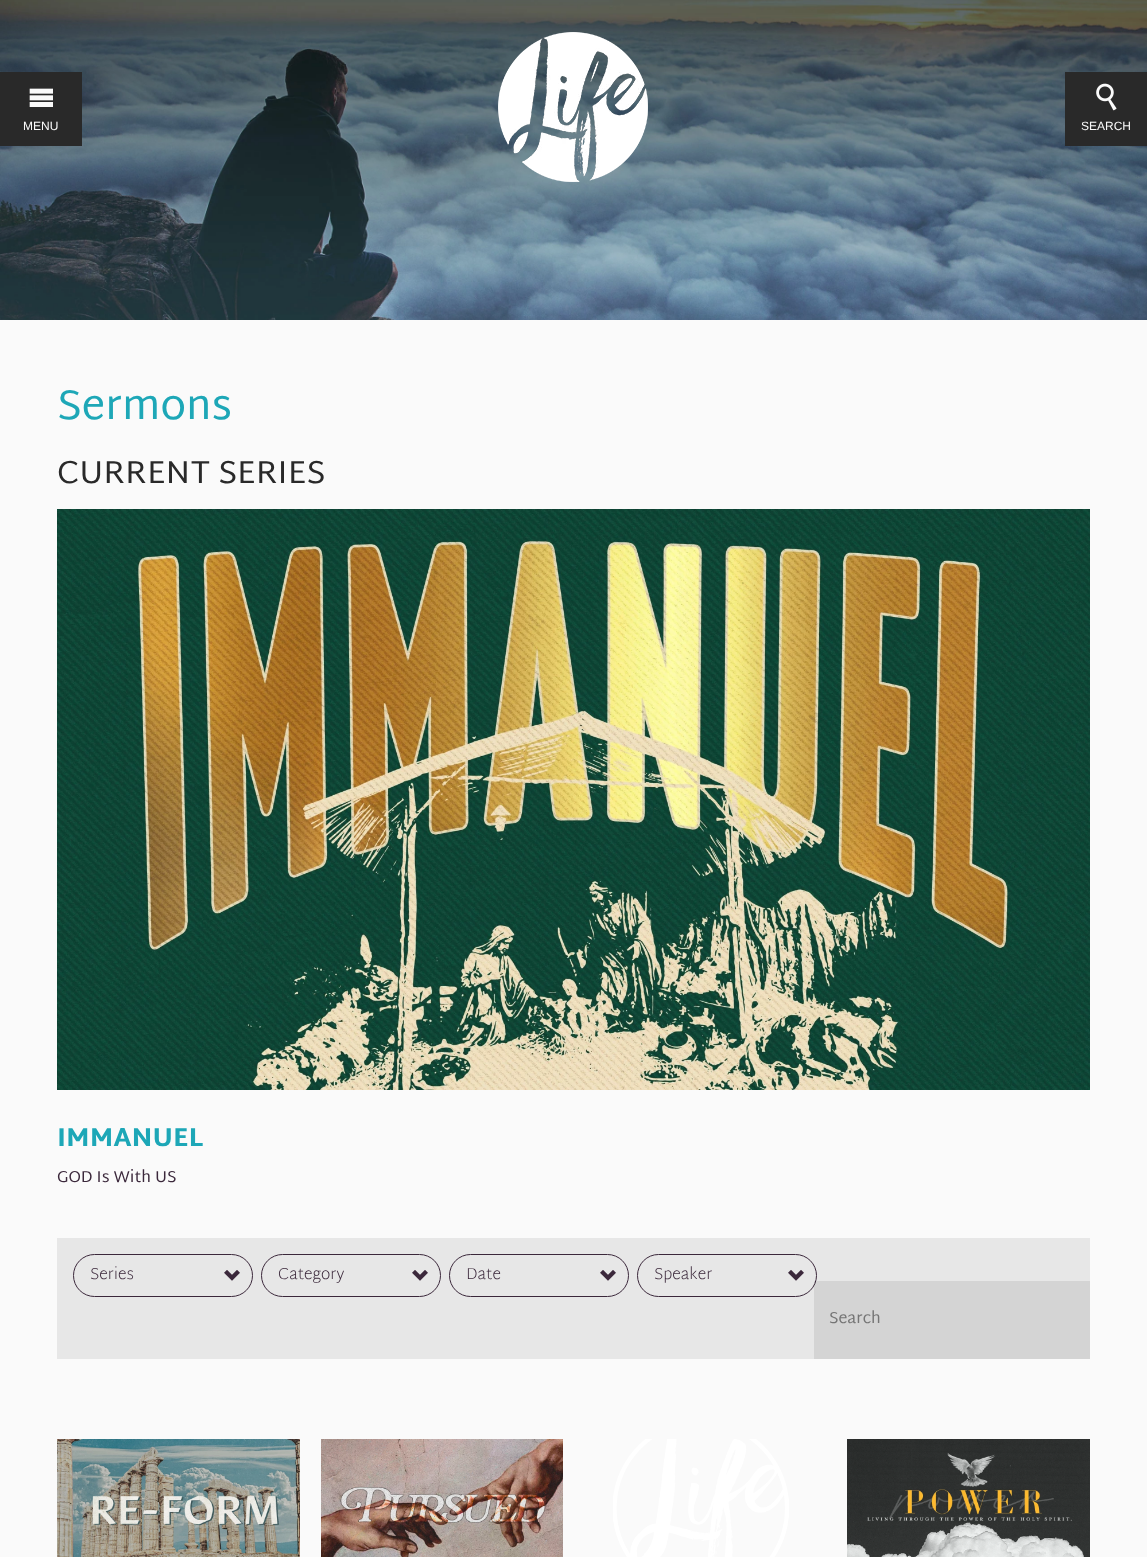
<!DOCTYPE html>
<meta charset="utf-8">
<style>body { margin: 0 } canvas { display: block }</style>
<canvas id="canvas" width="1147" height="1557"></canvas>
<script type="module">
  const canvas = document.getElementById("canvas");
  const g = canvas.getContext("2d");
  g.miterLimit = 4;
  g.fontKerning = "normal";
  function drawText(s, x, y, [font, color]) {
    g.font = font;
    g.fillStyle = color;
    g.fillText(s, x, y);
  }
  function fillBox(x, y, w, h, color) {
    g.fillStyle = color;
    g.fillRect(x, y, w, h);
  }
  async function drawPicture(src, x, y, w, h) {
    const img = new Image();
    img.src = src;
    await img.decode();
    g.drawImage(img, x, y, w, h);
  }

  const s1 = ["12px Liberation Sans", "#FAFAFA"];
  const s2 = ["42px Martel Sans", "#1DA7B7"];
  const s3 = ["32px Martel Sans", "#292929"];
  const s4 = ["800 26px Martel Sans", "#1DA7B7"];
  const s5 = ["16px Martel Sans", "#3B283B"];
  const s6 = ["200 16px Martel Sans", "#3B283B"];
  const s7 = ["16px Martel Sans", "#757575"];

  fillBox(0, 0, 1147, 1557, "#FAFAFA");
  await drawPicture("pic3.png", 0, 0, 1147, 320);
  fillBox(0, 72, 82, 74, "#292929");
  await drawPicture("pic1.png", 29, 88, 24, 19);
  drawText("MENU", 23, 130, s1);
  fillBox(1065, 72, 82, 74, "#292929");
  await drawPicture("pic2.png", 1096, 83, 21, 28);
  drawText("SEARCH", 1081, 130, s1);
  await drawPicture("pic4.png", 498, 32, 150, 150);
  drawText("Sermons", 57, 419, s2);
  drawText("CURRENT SERIES", 57, 483, s3);
  await drawPicture("pic5.png", 57, 509, 1033, 581);
  drawText("IMMANUEL", 57, 1146, s4);
  drawText("GOD Is With US", 57, 1182, s5);
  fillBox(57, 1238, 1033, 121, "#E7E7E7");
  g.beginPath();
  g.roundRect(73.5, 1254.5, 179, 42, 21);
  g.strokeStyle = "#3B283B";
  g.stroke();
  drawText("Series", 90, 1279, s6);
  await drawPicture("pic6.png", 224, 1270, 16, 11);
  g.beginPath();
  g.roundRect(261.5, 1254.5, 179, 42, 21);
  g.stroke();
  drawText("Category", 278, 1279, s6);
  await drawPicture("pic6.png", 412, 1270, 16, 11);
  g.beginPath();
  g.roundRect(449.5, 1254.5, 179, 42, 21);
  g.stroke();
  drawText("Date", 466, 1279, s6);
  await drawPicture("pic6.png", 600, 1270, 16, 11);
  g.beginPath();
  g.roundRect(637.5, 1254.5, 179, 42, 21);
  g.stroke();
  drawText("Speaker", 654, 1279, s6);
  await drawPicture("pic6.png", 788, 1270, 16, 11);
  fillBox(814, 1281, 276, 78, "rgba(0, 0, 0, 0.08)");
  drawText("Search", 829, 1323, s7);
  await drawPicture("pic7.png", 57, 1439, 243, 118);
  await drawPicture("pic8.png", 321, 1439, 242, 118);
  await drawPicture("pic9.png", 613, 1439, 176, 118);
  await drawPicture("pic10.png", 847, 1439, 243, 118);
</script>
